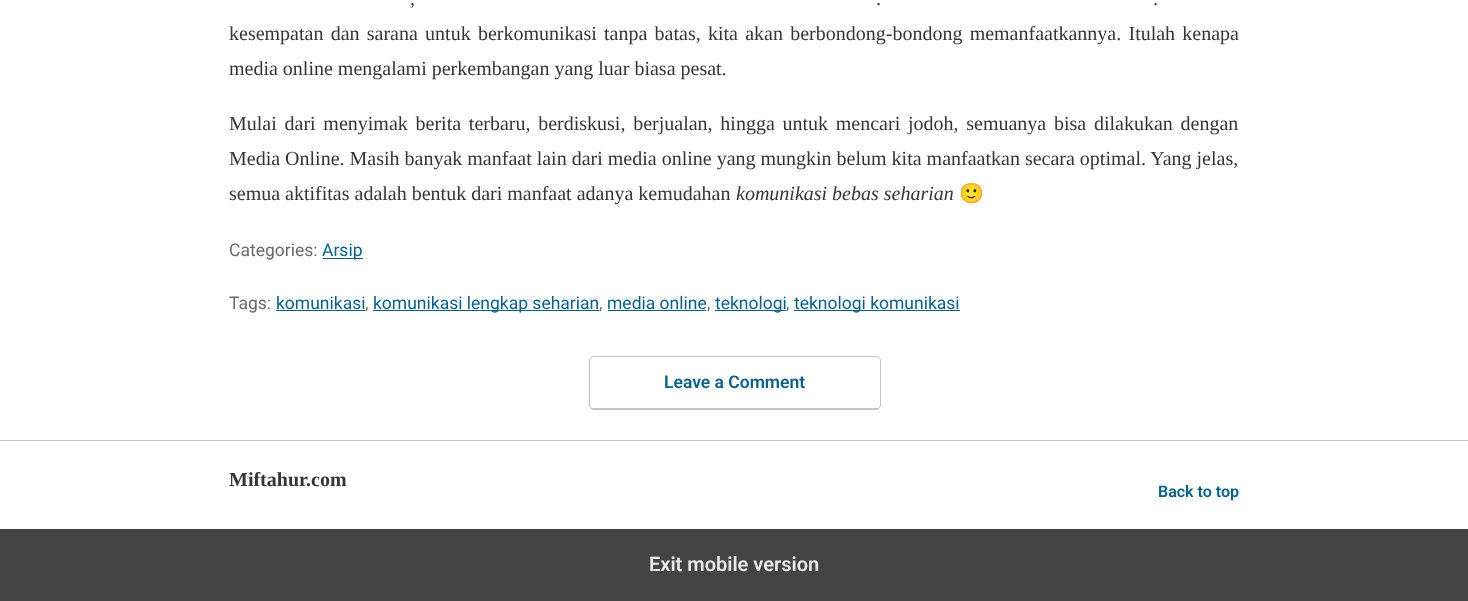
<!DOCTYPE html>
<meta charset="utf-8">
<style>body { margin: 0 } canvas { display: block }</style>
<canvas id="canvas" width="1468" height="601"></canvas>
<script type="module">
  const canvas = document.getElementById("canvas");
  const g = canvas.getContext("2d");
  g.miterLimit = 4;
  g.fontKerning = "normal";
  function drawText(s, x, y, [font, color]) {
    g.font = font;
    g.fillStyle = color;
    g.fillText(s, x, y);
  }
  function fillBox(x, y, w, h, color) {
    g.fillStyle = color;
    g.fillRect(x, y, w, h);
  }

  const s1 = ["20px Liberation Serif", "#353535"];
  const s2 = ["italic 20px Liberation Serif", "#353535"];
  const s3 = ["20px Noto Color Emoji", "#353535"];
  const s4 = ["17.5px Roboto", "#696969"];
  const s5 = ["17.5px Roboto", "#0A5F85"];
  const s6 = ["600 17.5px Roboto", "#0A5F85"];
  const s7 = ["bold 20px Liberation Serif", "#353535"];
  const s8 = ["600 16px Roboto", "#0A5F85"];
  const s9 = ["600 20px Roboto", "#EAEAEA"];

  fillBox(0, 0, 1468, 601, "#FFFFFF");
  g.wordSpacing = "4px";
  drawText(",", 410, 5, s1);
  drawText(".", 876, 5, s1);
  drawText(".", 1153, 5, s1);
  g.wordSpacing = "2.25px";
  drawText("kesempatan dan sarana untuk berkomunikasi tanpa batas, kita akan berbondong-bondong memanfaatkannya. Itulah kenapa", 229, 40, s1);
  g.wordSpacing = "0px";
  drawText("media online mengalami perkembangan yang luar biasa pesat.", 229, 75, s1);
  g.wordSpacing = "2.75px";
  drawText("Mulai dari menyimak berita terbaru, berdiskusi, berjualan, hingga untuk mencari jodoh, semuanya bisa dilakukan dengan", 229, 130, s1);
  g.wordSpacing = "0px";
  drawText("Media Online. Masih banyak manfaat lain dari media online yang mungkin belum kita manfaatkan secara optimal. Yang jelas,", 229, 165, s1);
  drawText("semua aktifitas adalah bentuk dari manfaat adanya kemudahan", 229, 200, s1);
  drawText("komunikasi bebas seharian", 736, 200, s2);
  drawText("🙂", 959, 200, s3);
  drawText("Categories:", 229, 256, s4);
  fillBox(323, 258, 40, 1, "#0A5F85");
  drawText("Arsip", 322, 256, s5);
  drawText("Tags:", 229, 309, s4);
  drawText("komunikasi", 276, 309, s5);
  fillBox(276, 310, 89, 1, "#0A5F85");
  drawText(",", 365, 309, s4);
  fillBox(373, 310, 226, 1, "#0A5F85");
  drawText("komunikasi lengkap seharian", 373, 309, s5);
  drawText(",", 599, 309, s4);
  drawText("media online", 607, 309, s5);
  fillBox(608, 310, 98, 1, "#0A5F85");
  drawText(",", 707, 309, s4);
  fillBox(715, 310, 71, 1, "#0A5F85");
  drawText("teknologi", 715, 309, s5);
  drawText(",", 786, 309, s4);
  fillBox(794, 310, 166, 1, "#0A5F85");
  drawText("teknologi komunikasi", 794, 309, s5);
  g.beginPath();
  g.roundRect(589.5, 356.5, 291, 53, 4.5);
  g.strokeStyle = "#C2C2C2";
  g.stroke();
  fillBox(591, 408, 288, 1, "#C2C2C2");
  drawText("Leave a Comment", 664, 388, s6);
  fillBox(0, 440, 1468, 1, "#C2C2C2");
  drawText("Miftahur.com", 229, 486, s7);
  drawText("Back to top", 1158, 497, s8);
  fillBox(0, 529, 1468, 72, "#444444");
  drawText("Exit mobile version", 649, 571, s9);
</script>
